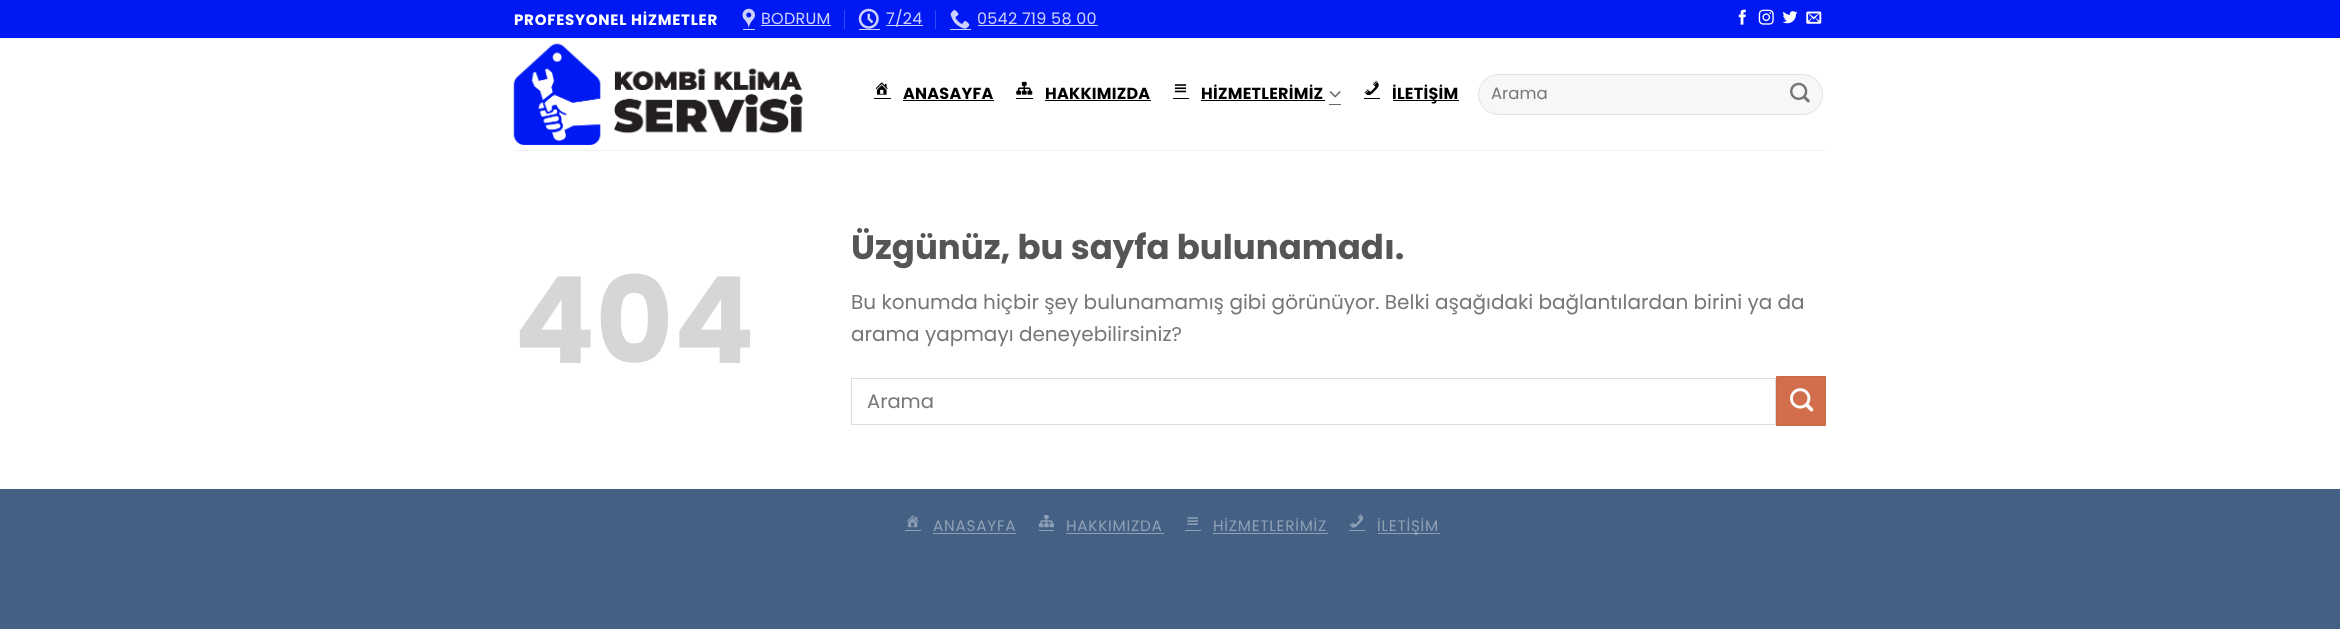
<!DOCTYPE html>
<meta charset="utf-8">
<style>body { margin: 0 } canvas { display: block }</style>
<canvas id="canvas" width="2340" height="629"></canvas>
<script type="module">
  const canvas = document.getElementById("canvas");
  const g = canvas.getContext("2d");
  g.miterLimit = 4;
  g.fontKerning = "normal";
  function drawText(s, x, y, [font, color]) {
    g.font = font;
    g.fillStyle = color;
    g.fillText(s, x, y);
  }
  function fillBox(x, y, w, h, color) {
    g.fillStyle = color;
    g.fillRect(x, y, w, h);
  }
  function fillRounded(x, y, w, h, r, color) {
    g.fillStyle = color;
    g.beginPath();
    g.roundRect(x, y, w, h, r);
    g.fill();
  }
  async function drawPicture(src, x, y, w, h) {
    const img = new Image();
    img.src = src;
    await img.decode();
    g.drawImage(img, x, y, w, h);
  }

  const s1 = ["bold 15px Poppins", "#FFFFFF"];
  const s2 = ["16px Poppins", "#CCD1FC"];
  const s3 = ["bold 16px Poppins", "#000000"];
  const s4 = ["16.5px Poppins", "#777777"];
  const s5 = ["bold 120px Poppins", "#D6D6D6"];
  const s6 = ["bold 34px Poppins", "#555555"];
  const s7 = ["20px Poppins", "#777777"];
  const s8 = ["19.5px Poppins", "#777777"];
  const s9 = ["15.25px Poppins", "#8FA0B5"];

  fillBox(0, 0, 2340, 629, "#446084");
  fillBox(0, 38, 2340, 451, "#FFFFFF");
  fillBox(0, 0, 2340, 38, "#0019F2");
  g.letterSpacing = "0.75px";
  drawText("PROFESYONEL HİZMETLER", 514, 25, s1);
  await drawPicture("pic1.png", 742, 8, 13, 21);
  fillBox(743, 29, 12, 1, "#CCD1FC");
  g.letterSpacing = "0.25px";
  drawText("BODRUM", 761, 24, s2);
  fillBox(761, 25, 70, 1, "#CCD1FC");
  fillBox(844, 10, 1, 19, "#3347F5");
  await drawPicture("pic2.png", 858, 8, 21, 21);
  fillBox(859, 29, 21, 1, "#CCD1FC");
  fillBox(886, 25, 37, 1, "#CCD1FC");
  drawText("7/24", 886, 24, s2);
  fillBox(935, 10, 1, 19, "#3347F5");
  await drawPicture("pic3.png", 950, 10, 20, 19);
  fillBox(950, 29, 21, 1, "#CCD1FC");
  drawText("0542 719 58 00", 977, 24, s2);
  fillBox(978, 25, 120, 1, "#CCD1FC");
  await drawPicture("pic4.png", 1738, 9, 8, 16);
  await drawPicture("pic5.png", 1758, 9, 16, 16);
  await drawPicture("pic6.png", 1782, 11, 16, 13);
  await drawPicture("pic7.png", 1806, 11, 16, 13);
  await drawPicture("pic8.png", 513, 43, 290, 102);
  await drawPicture("pic9.png", 875, 82, 13, 13);
  fillBox(874, 98, 17, 1, "#000000");
  drawText("ANASAYFA", 903, 99, s3);
  fillBox(903, 100, 91, 1, "#000000");
  await drawPicture("pic10.png", 1016, 81, 17, 14);
  fillBox(1016, 98, 17, 1, "#000000");
  drawText("HAKKIMIZDA", 1045, 99, s3);
  fillBox(1045, 100, 106, 1, "#000000");
  await drawPicture("pic11.png", 1174, 84, 13, 9);
  fillBox(1173, 98, 16, 1, "#000000");
  drawText("HİZMETLERİMİZ", 1201, 99, s3);
  fillBox(1201, 100, 124, 1, "#000000");
  await drawPicture("pic12.png", 1329, 91, 12, 7);
  fillBox(1329, 104, 12, 1, "#666666");
  await drawPicture("pic13.png", 1364, 81, 15, 15);
  fillBox(1364, 98, 16, 1, "#000000");
  fillBox(1393, 100, 66, 1, "#000000");
  drawText("İLETİŞİM", 1392, 99, s3);
  fillRounded(1478, 74, 345, 41, 20.5, "#F7F7F7");
  g.beginPath();
  g.roundRect(1478.5, 74.5, 344, 40, 20);
  g.strokeStyle = "rgba(0, 0, 0, 0.09)";
  g.stroke();
  g.letterSpacing = "0px";
  drawText("Arama", 1491, 99, s4);
  await drawPicture("pic14.png", 1790, 82, 20, 21);
  fillBox(514, 150, 1312, 1, "#F1F1F1");
  drawText("404", 514, 363, s5);
  drawText("Üzgünüz, bu sayfa bulunamadı.", 851, 259, s6);
  drawText("Bu konumda hiçbir şey bulunamamış gibi görünüyor. Belki aşağıdaki bağlantılardan birini ya da", 851, 309, s7);
  drawText("arama yapmayı deneyebilirsiniz?", 851, 341, s7);
  g.strokeStyle = "#DDDDDD";
  g.strokeRect(851.5, 378.5, 924, 46);
  drawText("Arama", 867, 408, s8);
  g.fillStyle = "#D26E4B";
  g.beginPath();
  g.rect(1776.5, 376.5, 49, 49);
  g.fill();
  g.strokeStyle = "#C86947";
  g.stroke();
  await drawPicture("pic15.png", 1790, 388, 24, 24);
  await drawPicture("pic16.png", 907, 515, 12, 13);
  fillBox(905, 530, 16, 1, "#8FA0B5");
  g.letterSpacing = "0.75px";
  drawText("ANASAYFA", 933, 531, s9);
  fillBox(933, 533, 83, 1, "#8FA0B5");
  await drawPicture("pic17.png", 1038, 515, 16, 13);
  fillBox(1039, 530, 15, 1, "#8FA0B5");
  drawText("HAKKIMIZDA", 1066, 531, s9);
  fillBox(1066, 533, 98, 1, "#8FA0B5");
  await drawPicture("pic18.png", 1187, 517, 11, 8);
  fillBox(1185, 530, 16, 1, "#8FA0B5");
  drawText("HİZMETLERİMİZ", 1213, 531, s9);
  fillBox(1213, 533, 115, 1, "#8FA0B5");
  await drawPicture("pic19.png", 1349, 514, 14, 14);
  fillBox(1349, 530, 16, 1, "#8FA0B5");
  fillBox(1378, 533, 62, 1, "#8FA0B5");
  drawText("İLETİŞİM", 1377, 531, s9);
</script>
